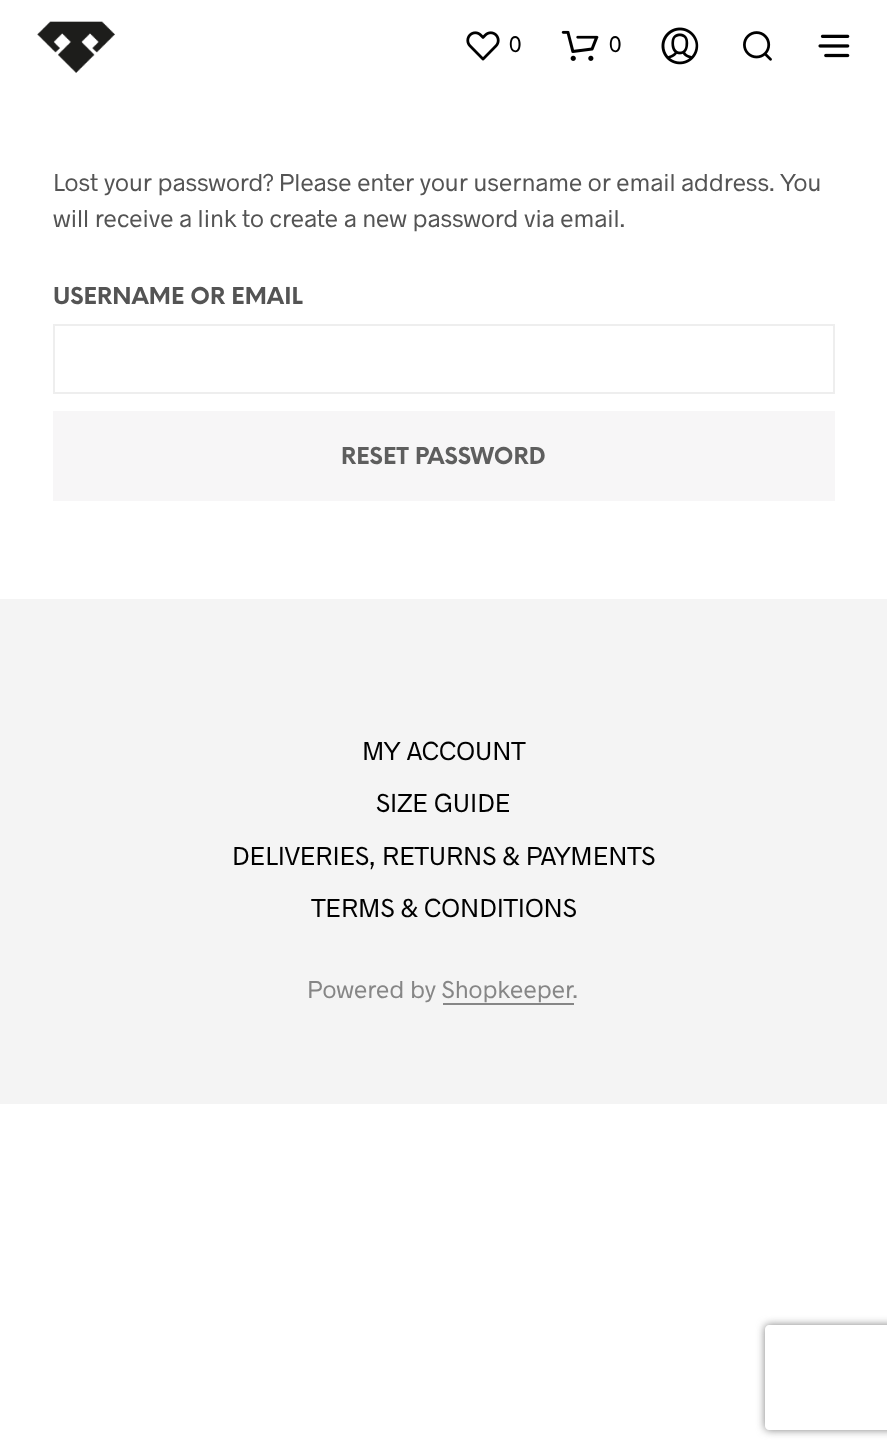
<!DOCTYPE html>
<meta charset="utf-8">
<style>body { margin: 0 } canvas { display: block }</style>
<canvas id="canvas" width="887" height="1453"></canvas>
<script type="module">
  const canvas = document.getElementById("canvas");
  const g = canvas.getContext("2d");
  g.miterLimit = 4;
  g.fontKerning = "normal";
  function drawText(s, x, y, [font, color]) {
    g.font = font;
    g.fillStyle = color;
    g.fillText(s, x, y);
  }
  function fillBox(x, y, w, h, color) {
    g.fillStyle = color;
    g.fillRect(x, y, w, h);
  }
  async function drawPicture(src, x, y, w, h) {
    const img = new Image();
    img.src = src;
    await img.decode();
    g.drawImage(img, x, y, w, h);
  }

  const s1 = ["22.75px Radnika", "#000000"];
  const s2 = ["24.5px Radnika", "#545454"];
  const s3 = ["bold 22.75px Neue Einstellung", "#545454"];
  const s4 = ["bold 22.75px Neue Einstellung", "#5E5E5E"];
  const s5 = ["26.25px Radnika", "#000000"];
  const s6 = ["24.5px Radnika", "#868686"];

  fillBox(0, 0, 887, 1453, "#FFFFFF");
  await drawPicture("pic1.png", 37, 21, 78, 52);
  await drawPicture("pic2.png", 466, 31, 34, 30);
  drawText("0", 509, 52, s1);
  await drawPicture("pic3.png", 561, 30, 38, 31);
  drawText("0", 609, 52, s1);
  await drawPicture("pic4.png", 661, 27, 38, 38);
  await drawPicture("pic5.png", 743, 31, 29, 30);
  await drawPicture("pic6.png", 818, 34, 32, 24);
  drawText("Lost your password? Please enter your username or email address. You", 53, 191, s2);
  drawText("will receive a link to create a new password via email.", 53, 227, s2);
  drawText("USERNAME OR EMAIL", 53, 304, s3);
  g.strokeStyle = "#EEEEEE";
  g.lineWidth = 2;
  g.strokeRect(54, 325, 780, 68);
  fillBox(53, 411, 782, 90, "#F7F6F7");
  drawText("RESET PASSWORD", 341, 464, s4);
  fillBox(0, 599, 887, 505, "#F4F4F4");
  drawText("MY ACCOUNT", 362, 760, s5);
  drawText("SIZE GUIDE", 376, 812, s5);
  drawText("DELIVERIES, RETURNS & PAYMENTS", 232, 865, s5);
  drawText("TERMS & CONDITIONS", 311, 917, s5);
  drawText("Powered by Shopkeeper.", 307, 998, s6);
  fillBox(443, 1003, 131, 2, "#868686");
  g.save();
  g.beginPath();
  g.moveTo(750, 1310);
  g.lineTo(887, 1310);
  g.lineTo(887, 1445);
  g.lineTo(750, 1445);
  g.closePath();
  g.moveTo(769, 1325);
  g.lineTo(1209, 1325);
  g.bezierCurveTo(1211, 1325, 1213, 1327, 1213, 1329);
  g.lineTo(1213, 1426);
  g.bezierCurveTo(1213, 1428, 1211, 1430, 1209, 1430);
  g.lineTo(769, 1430);
  g.bezierCurveTo(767, 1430, 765, 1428, 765, 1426);
  g.lineTo(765, 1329);
  g.bezierCurveTo(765, 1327, 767, 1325, 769, 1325);
  g.closePath();
  g.clip("evenodd");
  g.fillStyle = "#808080";
  g.filter = "blur(4.5px)";
  g.beginPath();
  g.roundRect(765, 1325, 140, 105, 4);
  g.fill();
  g.filter = "none";
  g.restore();
</script>
